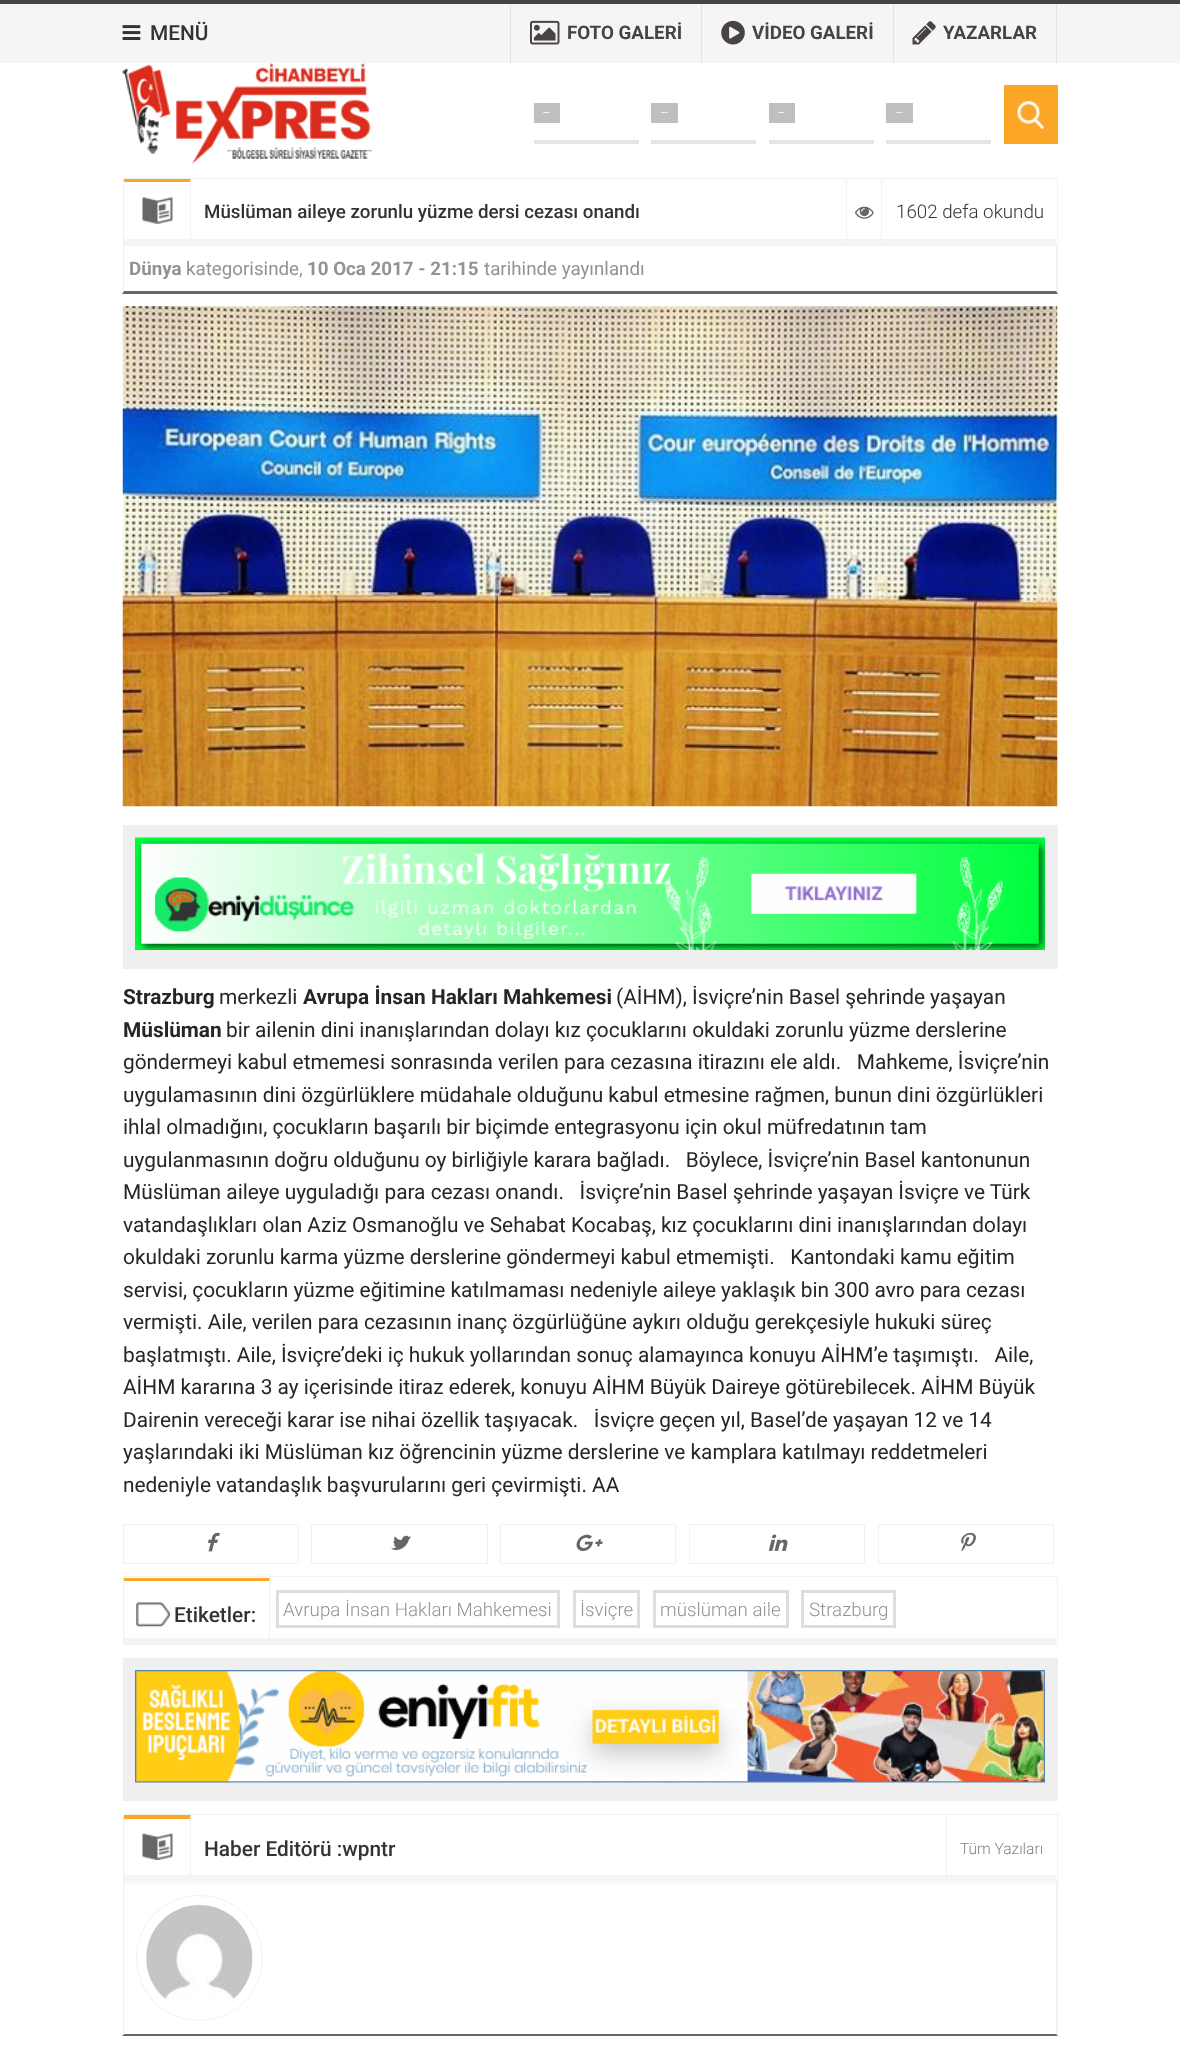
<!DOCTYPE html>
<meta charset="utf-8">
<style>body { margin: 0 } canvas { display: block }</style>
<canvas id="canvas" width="1180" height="2049"></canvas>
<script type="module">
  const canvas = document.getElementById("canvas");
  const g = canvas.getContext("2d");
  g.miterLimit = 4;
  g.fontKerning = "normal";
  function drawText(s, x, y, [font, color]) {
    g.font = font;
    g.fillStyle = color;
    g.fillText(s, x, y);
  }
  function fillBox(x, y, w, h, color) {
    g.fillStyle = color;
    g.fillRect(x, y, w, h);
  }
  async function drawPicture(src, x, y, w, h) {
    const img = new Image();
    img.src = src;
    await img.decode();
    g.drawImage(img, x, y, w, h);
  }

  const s1 = ["500 20.85px Roboto", "#333333"];
  const s2 = ["bold 18.75px Roboto", "#494242"];
  const s3 = ["12px Roboto", "#FFFFFF"];
  const s4 = ["500 18.75px Roboto", "#333333"];
  const s5 = ["300 18.75px Roboto", "#333333"];
  const s6 = ["bold 18.75px Roboto", "#929292"];
  const s7 = ["18.75px Roboto", "#929292"];
  const s8 = ["bold 20.85px Roboto", "#272525"];
  const s9 = ["20.85px Roboto", "#272525"];
  const s10 = ["300 18.75px Roboto", "#929292"];
  const s11 = ["300 15.5px Roboto", "#828282"];

  fillBox(0, 0, 1180, 2049, "#FFFFFF");
  fillBox(0, 4, 1180, 59, "#F5F5F5");
  fillBox(0, 0, 1180, 4, "#494242");
  await drawPicture("pic1.png", 122, 25, 19, 15);
  drawText("MENÜ", 150, 40, s1);
  fillBox(701, 4, 1, 59, "#E1E1E1");
  fillBox(510, 4, 1, 59, "#E1E1E1");
  await drawPicture("pic2.png", 530, 20, 30, 25);
  drawText("FOTO GALERİ", 567, 39, s2);
  fillBox(893, 4, 1, 59, "#E1E1E1");
  await drawPicture("pic3.png", 721, 20, 24, 25);
  drawText("VİDEO GALERİ", 752, 39, s2);
  fillBox(1056, 4, 1, 59, "#E1E1E1");
  await drawPicture("pic4.png", 912, 21, 24, 24);
  drawText("YAZARLAR", 943, 39, s2);
  await drawPicture("pic5.png", 122, 63, 250, 101);
  fillBox(534, 140, 105, 4, "#E5E5E5");
  fillBox(534, 103, 26, 20, "#BFBFBF");
  drawText("--", 543, 116, s3);
  fillBox(651, 140, 105, 4, "#E5E5E5");
  fillBox(651, 103, 27, 20, "#BFBFBF");
  drawText("--", 661, 116, s3);
  fillBox(769, 140, 105, 4, "#E5E5E5");
  fillBox(769, 103, 26, 20, "#BFBFBF");
  drawText("--", 778, 116, s3);
  fillBox(886, 140, 105, 4, "#E5E5E5");
  fillBox(886, 103, 27, 20, "#BFBFBF");
  drawText("--", 896, 116, s3);
  fillBox(1004, 85, 54, 59, "#FBA627");
  await drawPicture("pic6.png", 1017, 101, 27, 28);
  fillBox(124, 239, 932, 6, "#F4F4F4");
  g.strokeStyle = "#F1F1F1";
  g.strokeRect(123.5, 178.5, 934, 67);
  await drawPicture("pic7.png", 142, 197, 31, 27);
  g.fillStyle = "#FBA627";
  g.beginPath();
  g.moveTo(124, 179);
  g.lineTo(191, 179);
  g.lineTo(190, 182);
  g.lineTo(124, 182);
  g.closePath();
  g.fill();
  g.fillStyle = "#F1F1F1";
  g.beginPath();
  g.moveTo(191, 179);
  g.lineTo(191, 239);
  g.lineTo(190, 239);
  g.lineTo(190, 182);
  g.closePath();
  g.fill();
  drawText("Müslüman aileye zorunlu yüzme dersi cezası onandı", 204, 218, s4);
  fillBox(846, 179, 1, 66, "#F1F1F1");
  await drawPicture("pic8.png", 855, 206, 19, 13);
  fillBox(881, 179, 1, 66, "#F1F1F1");
  drawText("1602 defa okundu", 896, 218, s5);
  g.fillStyle = "#F1F1F1";
  g.beginPath();
  g.moveTo(1058, 246);
  g.lineTo(1058, 294);
  g.lineTo(1056, 291);
  g.lineTo(1056, 246);
  g.closePath();
  g.fill();
  g.fillStyle = "#666666";
  g.beginPath();
  g.moveTo(1058, 294);
  g.lineTo(122, 294);
  g.lineTo(124, 291);
  g.lineTo(1056, 291);
  g.closePath();
  g.fill();
  g.save();
  g.beginPath();
  g.rect(123, 178, 935, 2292);
  g.clip();
  g.fillStyle = "#F1F1F1";
  g.beginPath();
  g.moveTo(122, 294);
  g.lineTo(122, 246);
  g.lineTo(124, 246);
  g.lineTo(124, 291);
  g.closePath();
  g.fill();
  g.restore();
  drawText("Dünya", 129, 275, s6);
  drawText("kategorisinde,", 186, 275, s7);
  drawText("10 Oca 2017 - 21:15", 307, 275, s6);
  drawText("tarihinde yayınlandı", 484, 275, s7);
  await drawPicture("pic9.png", 122, 306, 936, 501);
  fillBox(123, 825, 935, 144, "#EFEFEF");
  await drawPicture("pic10.png", 135, 837, 910, 113);
  drawText("Strazburg", 123, 1004, s8);
  drawText("merkezli", 219, 1004, s9);
  drawText("Avrupa İnsan Hakları Mahkemesi", 303, 1004, s8);
  drawText("(AİHM), İsviçre’nin Basel şehrinde yaşayan", 616, 1004, s9);
  drawText("Müslüman", 123, 1037, s8);
  drawText("bir ailenin dini inanışlarından dolayı kız çocuklarını okuldaki zorunlu yüzme derslerine", 226, 1037, s9);
  drawText("göndermeyi kabul etmemesi sonrasında verilen para cezasına itirazını ele aldı.   Mahkeme, İsviçre’nin", 123, 1069, s9);
  drawText("uygulamasının dini özgürlüklere müdahale olduğunu kabul etmesine rağmen, bunun dini özgürlükleri", 123, 1102, s9);
  drawText("ihlal olmadığını, çocukların başarılı bir biçimde entegrasyonu için okul müfredatının tam", 123, 1134, s9);
  drawText("uygulanmasının doğru olduğunu oy birliğiyle karara bağladı.   Böylece, İsviçre’nin Basel kantonunun", 123, 1167, s9);
  drawText("Müslüman aileye uyguladığı para cezası onandı.   İsviçre’nin Basel şehrinde yaşayan İsviçre ve Türk", 123, 1199, s9);
  drawText("vatandaşlıkları olan Aziz Osmanoğlu ve Sehabat Kocabaş, kız çocuklarını dini inanışlarından dolayı", 123, 1232, s9);
  drawText("okuldaki zorunlu karma yüzme derslerine göndermeyi kabul etmemişti.   Kantondaki kamu eğitim", 123, 1264, s9);
  drawText("servisi, çocukların yüzme eğitimine katılmaması nedeniyle aileye yaklaşık bin 300 avro para cezası", 123, 1297, s9);
  drawText("vermişti. Aile, verilen para cezasının inanç özgürlüğüne aykırı olduğu gerekçesiyle hukuki süreç", 123, 1329, s9);
  drawText("başlatmıştı. Aile, İsviçre’deki iç hukuk yollarından sonuç alamayınca konuyu AİHM’e taşımıştı.   Aile,", 123, 1362, s9);
  drawText("AİHM kararına 3 ay içerisinde itiraz ederek, konuyu AİHM Büyük Daireye götürebilecek. AİHM Büyük", 123, 1394, s9);
  drawText("Dairenin vereceği karar ise nihai özellik taşıyacak.   İsviçre geçen yıl, Basel’de yaşayan 12 ve 14", 123, 1427, s9);
  drawText("yaşlarındaki iki Müslüman kız öğrencinin yüzme derslerine ve kamplara katılmayı reddetmeleri", 123, 1459, s9);
  drawText("nedeniyle vatandaşlık başvurularını geri çevirmişti. AA", 123, 1492, s9);
  g.strokeRect(123.5, 1524.5, 175, 39);
  await drawPicture("pic11.png", 207, 1532, 13, 20);
  g.strokeRect(311.5, 1524.5, 176, 39);
  await drawPicture("pic12.png", 391, 1535, 20, 15);
  g.strokeRect(500.5, 1524.5, 175, 39);
  await drawPicture("pic13.png", 576, 1534, 27, 17);
  g.strokeRect(689.5, 1524.5, 175, 39);
  await drawPicture("pic14.png", 768, 1534, 20, 17);
  g.strokeRect(878.5, 1524.5, 175, 39);
  await drawPicture("pic15.png", 961, 1532, 15, 20);
  fillBox(124, 1638, 932, 6, "#F4F4F4");
  g.strokeRect(123.5, 1576.5, 934, 68);
  await drawPicture("pic16.png", 136, 1602, 34, 25);
  g.fillStyle = "#FBA627";
  g.beginPath();
  g.moveTo(124, 1578);
  g.lineTo(270, 1578);
  g.lineTo(269, 1581);
  g.lineTo(124, 1581);
  g.closePath();
  g.fill();
  g.save();
  g.beginPath();
  g.rect(124, 1578, 932, 66);
  g.clip();
  g.fillStyle = "#F1F1F1";
  g.beginPath();
  g.moveTo(270, 1578);
  g.lineTo(270, 1648);
  g.lineTo(269, 1648);
  g.lineTo(269, 1581);
  g.closePath();
  g.fill();
  g.restore();
  drawText("Etiketler:", 174, 1622, s1);
  g.strokeStyle = "#DDDDDD";
  g.lineWidth = 3;
  g.strokeRect(277.5, 1591.5, 281, 35);
  drawText("Avrupa İnsan Hakları Mahkemesi", 283, 1616, s10);
  g.strokeRect(574.5, 1591.5, 64, 35);
  drawText("İsviçre", 580, 1616, s10);
  g.strokeRect(654.5, 1591.5, 133, 35);
  drawText("müslüman aile", 660, 1616, s10);
  g.strokeRect(802.5, 1591.5, 92, 35);
  drawText("Strazburg", 809, 1616, s10);
  fillBox(123, 1658, 935, 143, "#EFEFEF");
  await drawPicture("pic17.png", 135, 1670, 910, 113);
  fillBox(124, 1875, 932, 6, "#F4F4F4");
  g.strokeStyle = "#F1F1F1";
  g.lineWidth = 1;
  g.strokeRect(123.5, 1814.5, 934, 68);
  await drawPicture("pic18.png", 142, 1833, 31, 27);
  g.fillStyle = "#FBA627";
  g.beginPath();
  g.moveTo(124, 1815);
  g.lineTo(191, 1815);
  g.lineTo(190, 1819);
  g.lineTo(124, 1819);
  g.closePath();
  g.fill();
  g.fillStyle = "#F1F1F1";
  g.beginPath();
  g.moveTo(191, 1815);
  g.lineTo(191, 1875);
  g.lineTo(190, 1875);
  g.lineTo(190, 1819);
  g.closePath();
  g.fill();
  drawText("Haber Editörü :wpntr", 204, 1856, s1);
  fillBox(946, 1815, 1, 66, "#F1F1F1");
  drawText("Tüm Yazıları", 960, 1854, s11);
  g.fillStyle = "#F1F1F1";
  g.beginPath();
  g.moveTo(1058, 1882);
  g.lineTo(1058, 2036);
  g.lineTo(1056, 2034);
  g.lineTo(1056, 1882);
  g.closePath();
  g.fill();
  g.fillStyle = "#666666";
  g.beginPath();
  g.moveTo(1058, 2036);
  g.lineTo(122, 2036);
  g.lineTo(124, 2034);
  g.lineTo(1056, 2034);
  g.closePath();
  g.fill();
  g.save();
  g.beginPath();
  g.rect(123, 178, 935, 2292);
  g.clip();
  g.fillStyle = "#F1F1F1";
  g.beginPath();
  g.moveTo(122, 2036);
  g.lineTo(122, 1882);
  g.lineTo(124, 1882);
  g.lineTo(124, 2034);
  g.closePath();
  g.fill();
  g.restore();
  g.beginPath();
  g.roundRect(136.5, 1895.5, 126, 125, 62.5);
  g.stroke();
  await drawPicture("pic19.png", 146, 1905, 107, 96);
</script>
